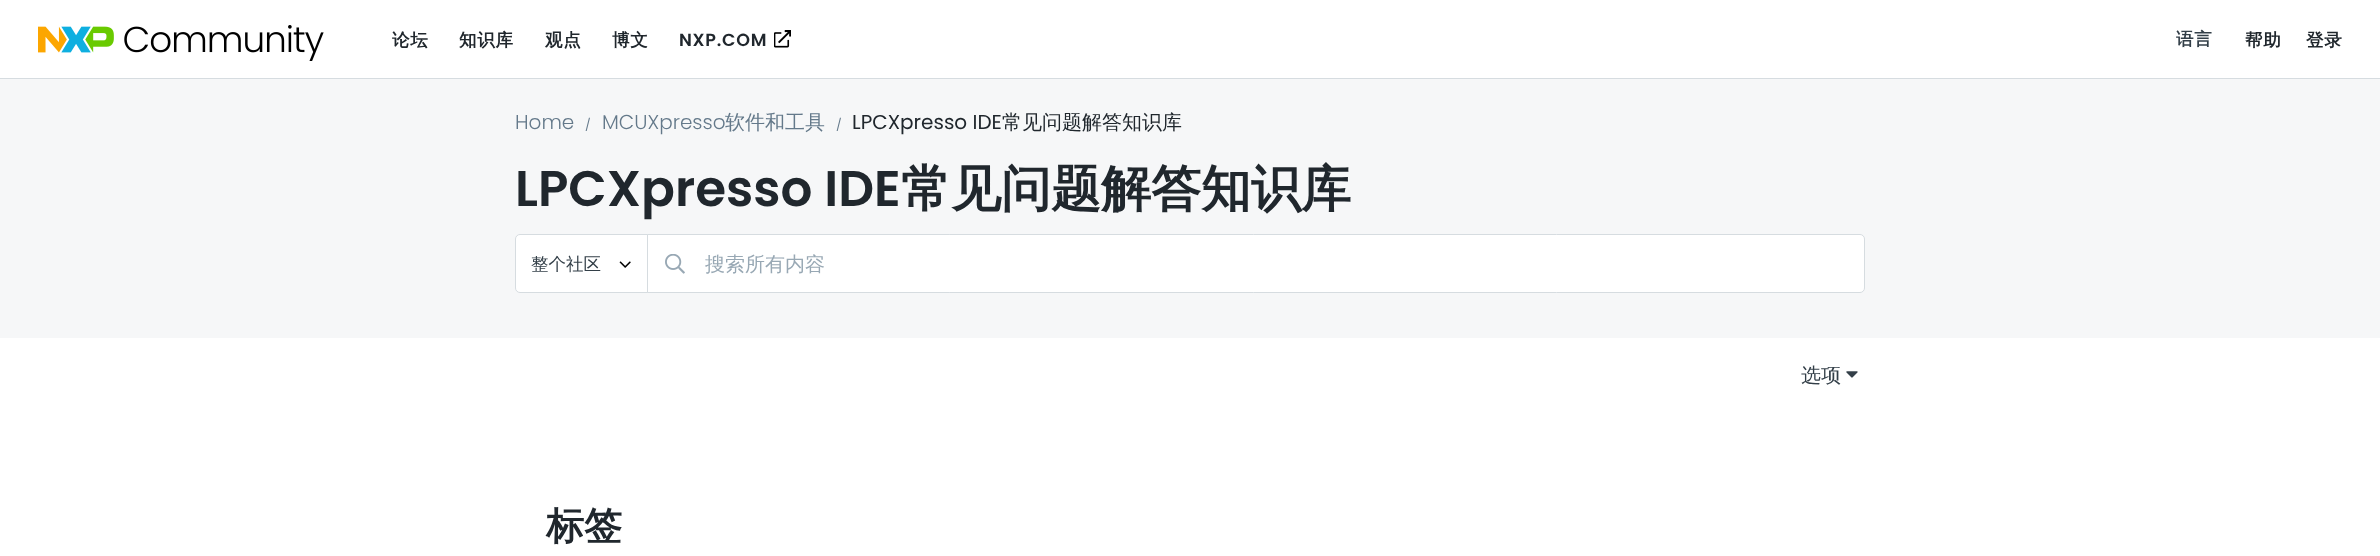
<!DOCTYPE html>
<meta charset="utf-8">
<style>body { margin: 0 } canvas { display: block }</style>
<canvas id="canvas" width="2380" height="556"></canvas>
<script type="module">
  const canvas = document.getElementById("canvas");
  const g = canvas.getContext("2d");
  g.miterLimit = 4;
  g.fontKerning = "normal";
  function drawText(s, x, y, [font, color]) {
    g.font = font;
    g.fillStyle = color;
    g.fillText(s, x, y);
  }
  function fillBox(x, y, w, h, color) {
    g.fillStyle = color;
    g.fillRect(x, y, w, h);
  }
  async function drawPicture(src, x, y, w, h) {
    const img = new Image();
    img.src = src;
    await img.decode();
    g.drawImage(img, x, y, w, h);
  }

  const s1 = ["bold 17.5px WenQuanYi Zen Hei", "#20272D"];
  const s2 = ["600 17.5px Poppins", "#20272D"];
  const s3 = ["bold 17.5px WenQuanYi Zen Hei", "#333F48"];
  const s4 = ["300 20px Poppins", "#64798A"];
  const s5 = ["12px Poppins", "#64798A"];
  const s6 = ["500 20px WenQuanYi Zen Hei", "#64798A"];
  const s7 = ["20px Poppins", "#20272D"];
  const s8 = ["500 20px WenQuanYi Zen Hei", "#20272D"];
  const s9 = ["600 50px Poppins", "#20272D"];
  const s10 = ["bold 50px WenQuanYi Zen Hei", "#20272D"];
  const s11 = ["500 17.5px WenQuanYi Zen Hei", "#333F48"];
  const s12 = ["500 20px WenQuanYi Zen Hei", "#98A8B4"];
  const s13 = ["500 20px WenQuanYi Zen Hei", "#333F48"];
  const s14 = ["bold 38px WenQuanYi Zen Hei", "#20272D"];

  fillBox(0, 0, 2380, 556, "#FFFFFF");
  fillBox(0, 78, 2380, 1, "#D6DCE0");
  await drawPicture("pic1.png", 38, 25, 286, 36);
  g.letterSpacing = "0.75px";
  drawText("论坛", 392, 46, s1);
  drawText("知识库", 459, 46, s1);
  drawText("观点", 545, 46, s1);
  drawText("博文", 612, 46, s1);
  drawText("NXP.COM", 679, 46, s2);
  await drawPicture("pic2.png", 774, 30, 17, 18);
  drawText("语言", 2176, 45, s3);
  drawText("帮助", 2245, 46, s1);
  drawText("登录", 2306, 46, s1);
  fillBox(0, 79, 2380, 259, "#F6F7F8");
  g.letterSpacing = "0px";
  drawText("Home", 515, 129, s4);
  drawText("/", 585, 129, s5);
  drawText("MCUXpresso", 602, 129, s4);
  drawText("软件和工具", 725, 129, s6);
  drawText("/", 836, 129, s5);
  drawText("LPCXpresso IDE", 852, 129, s7);
  drawText("常见问题解答知识库", 1002, 129, s8);
  drawText("LPCXpresso IDE", 515, 206, s9);
  drawText("常见问题解答知识库", 901, 206, s10);
  g.fillStyle = "#FFFFFF";
  g.beginPath();
  g.roundRect(646.5, 234.5, 1218, 58, [0, 4.5, 4.5, 0]);
  g.fill();
  g.strokeStyle = "#D6DCE0";
  g.stroke();
  g.beginPath();
  g.roundRect(515.5, 234.5, 132, 58, [4.5, 0, 0, 4.5]);
  g.fill();
  g.stroke();
  drawText("整个社区", 531, 270, s11);
  await drawPicture("pic3.png", 619, 261, 12, 7);
  await drawPicture("pic4.png", 665, 254, 20, 20);
  drawText("搜索所有内容", 705, 271, s12);
  drawText("选项", 1801, 382, s13);
  await drawPicture("pic5.png", 1846, 371, 12, 7);
  drawText("标签", 546, 539, s14);
</script>
